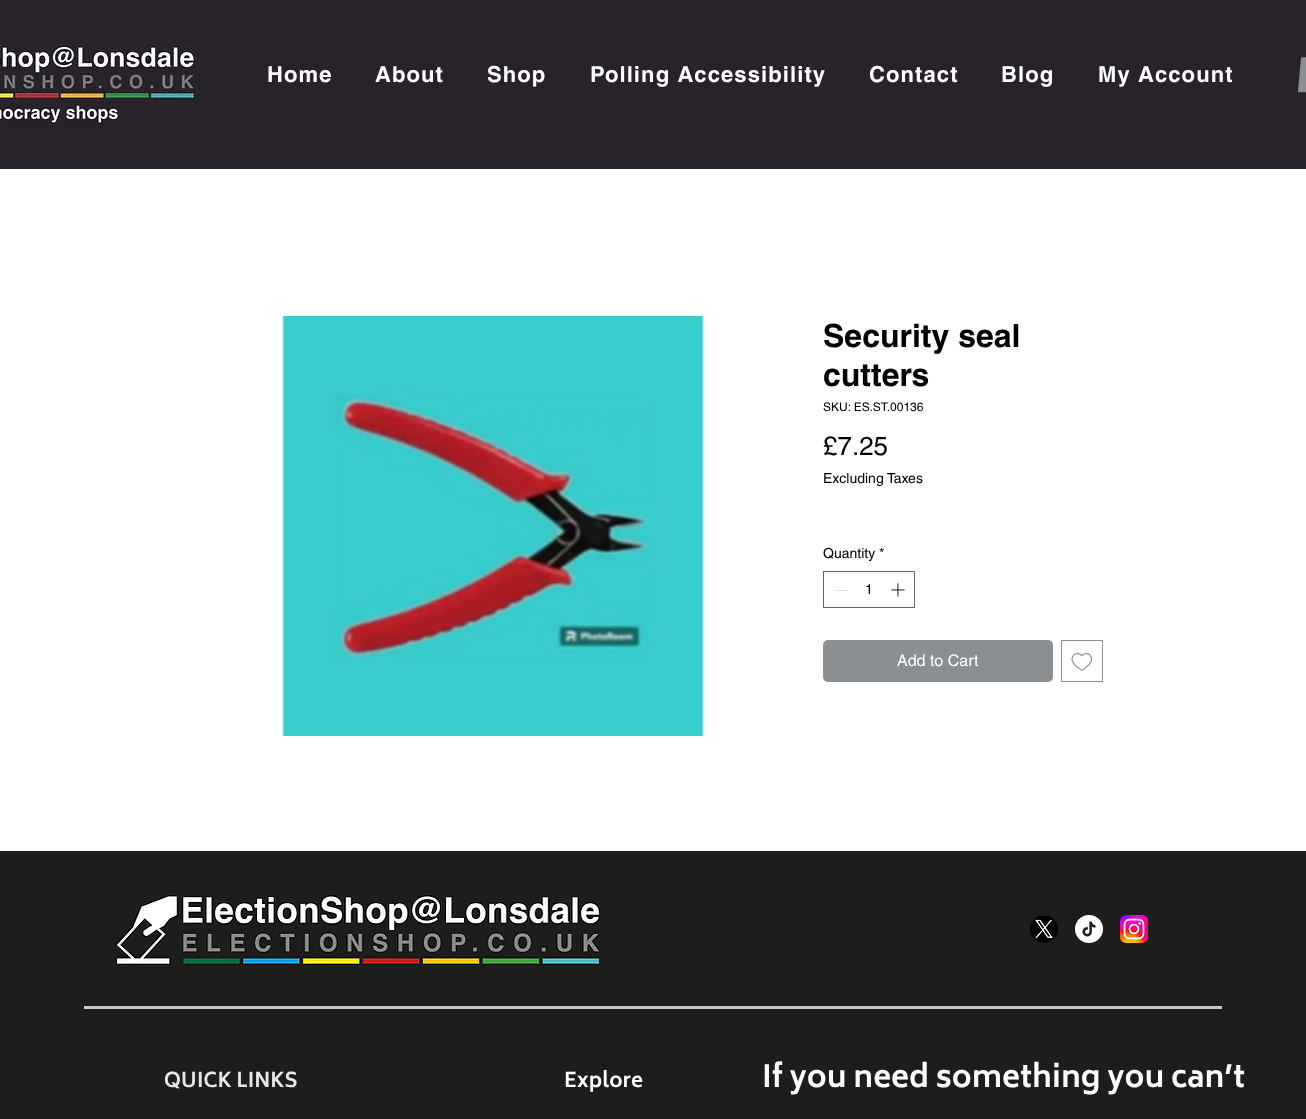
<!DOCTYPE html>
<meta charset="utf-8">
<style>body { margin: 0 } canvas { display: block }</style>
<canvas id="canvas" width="1306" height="1119"></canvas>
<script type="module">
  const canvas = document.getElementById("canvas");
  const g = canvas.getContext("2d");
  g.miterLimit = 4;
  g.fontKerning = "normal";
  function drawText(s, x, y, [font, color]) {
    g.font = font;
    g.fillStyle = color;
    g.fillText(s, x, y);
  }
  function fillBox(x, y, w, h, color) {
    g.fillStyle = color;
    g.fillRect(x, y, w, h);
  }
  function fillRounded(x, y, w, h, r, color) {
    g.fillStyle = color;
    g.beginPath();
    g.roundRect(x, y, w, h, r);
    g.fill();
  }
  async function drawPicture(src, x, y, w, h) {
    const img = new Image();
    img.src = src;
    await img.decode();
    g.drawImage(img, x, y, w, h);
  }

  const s1 = ["bold 22px helvetica", "#FFFFFF"];
  const s2 = ["bold 32px helvetica", "#000000"];
  const s3 = ["12px helvetica", "#000000"];
  const s4 = ["26px helvetica", "#000000"];
  const s5 = ["14px helvetica", "#000000"];
  const s6 = ["16px helvetica", "#FFFFFF"];
  const s7 = ["bold 20px Biryani", "#E8E6E6"];
  const s8 = ["bold 20px Biryani", "#FFFFFF"];
  const s9 = ["bold 30px Biryani", "#FFFFFF"];

  fillBox(0, 0, 1306, 1119, "#FFFFFF");
  fillBox(0, 0, 1306, 169, "#28232A");
  await drawPicture("pic1.png", 0, 44, 200, 81);
  g.letterSpacing = "1.1px";
  drawText("Home", 267, 82, s1);
  drawText("About", 375, 82, s1);
  drawText("Shop", 487, 82, s1);
  drawText("Polling Accessibility", 590, 82, s1);
  drawText("Contact", 869, 82, s1);
  drawText("Blog", 1001, 82, s1);
  drawText("My Account", 1098, 82, s1);
  await drawPicture("pic2.png", 1297, 57, 9, 36);
  await drawPicture("pic3.png", 282, 316, 423, 420);
  g.letterSpacing = "0px";
  drawText("Security seal", 823, 347, s2);
  drawText("cutters", 823, 386, s2);
  drawText("SKU: ES.ST.00136", 823, 411, s3);
  drawText("£7.25", 823, 455, s4);
  drawText("Excluding Taxes", 823, 483, s5);
  drawText("Quantity *", 823, 558, s5);
  g.strokeStyle = "#666666";
  g.strokeRect(823.5, 571.5, 91, 36);
  fillBox(835, 590, 13, 1, "#E3E3E3");
  drawText("1", 865, 594, s5);
  await drawPicture("pic4.png", 891, 583, 14, 14);
  fillRounded(823, 640, 230, 42, 5, "#8C8F91");
  drawText("Add to Cart", 897, 666, s6);
  g.strokeStyle = "#8C8F91";
  g.strokeRect(1061.5, 640.5, 41, 41);
  await drawPicture("pic5.png", 1071, 653, 22, 18);
  fillBox(0, 851, 1306, 268, "#1D1D1B");
  await drawPicture("pic6.png", 115, 894, 486, 72);
  await drawPicture("pic7.png", 1030, 916, 28, 27);
  await drawPicture("pic8.png", 1075, 915, 28, 28);
  await drawPicture("pic9.png", 1120, 915, 28, 28);
  fillBox(84, 1006, 1138, 3, "#C7C7C7");
  drawText("QUICK LINKS", 164, 1087, s7);
  drawText("Explore", 564, 1087, s8);
  drawText("If you need something you can’t", 762, 1087, s9);
</script>
